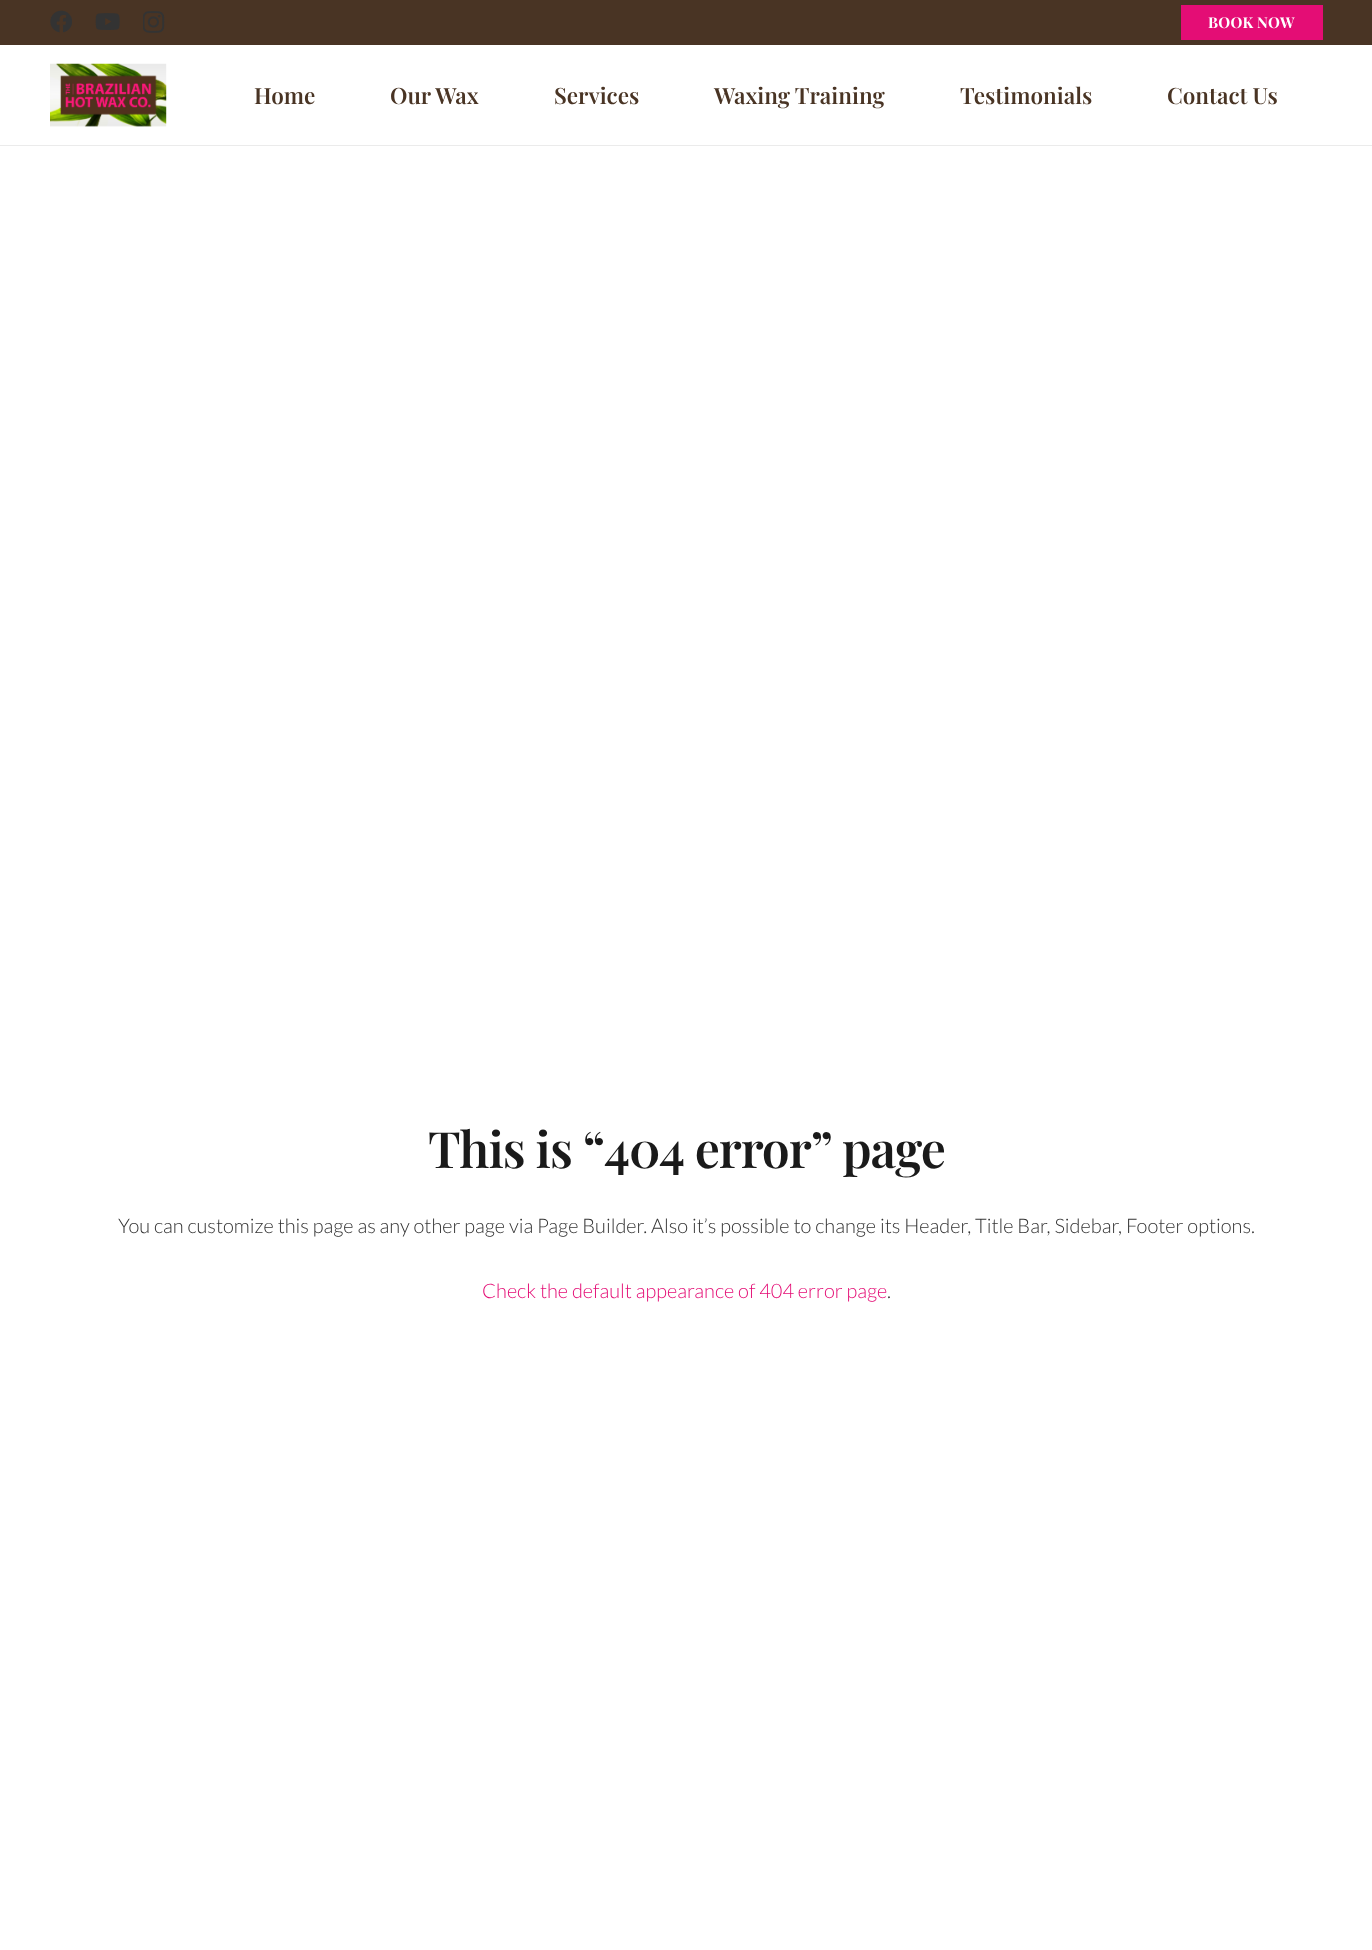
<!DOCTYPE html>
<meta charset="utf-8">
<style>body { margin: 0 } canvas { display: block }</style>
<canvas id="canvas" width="1372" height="1950"></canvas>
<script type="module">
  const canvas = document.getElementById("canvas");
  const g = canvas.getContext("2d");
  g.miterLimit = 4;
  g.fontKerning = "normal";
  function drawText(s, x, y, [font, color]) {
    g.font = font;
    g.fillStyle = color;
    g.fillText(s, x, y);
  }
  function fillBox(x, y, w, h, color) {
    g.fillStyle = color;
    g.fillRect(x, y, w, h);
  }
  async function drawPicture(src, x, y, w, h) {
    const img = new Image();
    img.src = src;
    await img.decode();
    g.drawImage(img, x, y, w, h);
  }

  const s1 = ["bold 15px Playfair Display", "#FFFFFF"];
  const s2 = ["600 22.5px Playfair Display", "#493424"];
  const s3 = ["600 50px Playfair Display", "#1A1A1A"];
  const s4 = ["300 20px Lato", "#333333"];
  const s5 = ["300 20px Lato", "#E40D75"];

  fillBox(0, 0, 1372, 1950, "#FFFFFF");
  fillBox(0, 0, 1372, 45, "#493424");
  await drawPicture("pic1.png", 50, 10, 22, 23);
  await drawPicture("pic2.png", 95, 13, 25, 17);
  await drawPicture("pic3.png", 143, 11, 22, 22);
  fillBox(1181, 5, 142, 35, "#E40D75");
  g.letterSpacing = "0.25px";
  drawText("BOOK NOW", 1208, 28, s1);
  g.fillStyle = "#EBEBEB";
  g.beginPath();
  g.moveTo(0, 145);
  g.lineTo(0, 146);
  g.lineTo(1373, 146);
  g.lineTo(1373, 46);
  g.lineTo(1372, 46);
  g.lineTo(1372, 145);
  g.closePath();
  g.fill();
  await drawPicture("pic4.png", 50, 63, 117, 64);
  g.letterSpacing = "0px";
  drawText("Home", 254, 104, s2);
  drawText("Our Wax", 390, 104, s2);
  drawText("Services", 554, 104, s2);
  drawText("Waxing Training", 714, 104, s2);
  drawText("Testimonials", 960, 104, s2);
  drawText("Contact Us", 1167, 104, s2);
  g.letterSpacing = "-1px";
  drawText("This is “404 error” page", 428, 1168, s3);
  g.letterSpacing = "0px";
  drawText("You can customize this page as any other page via Page Builder. Also it’s possible to change its Header, Title Bar, Sidebar, Footer options.", 118, 1233, s4);
  drawText("Check the default appearance of 404 error page", 482, 1298, s5);
  drawText(".", 887, 1298, s4);
</script>
